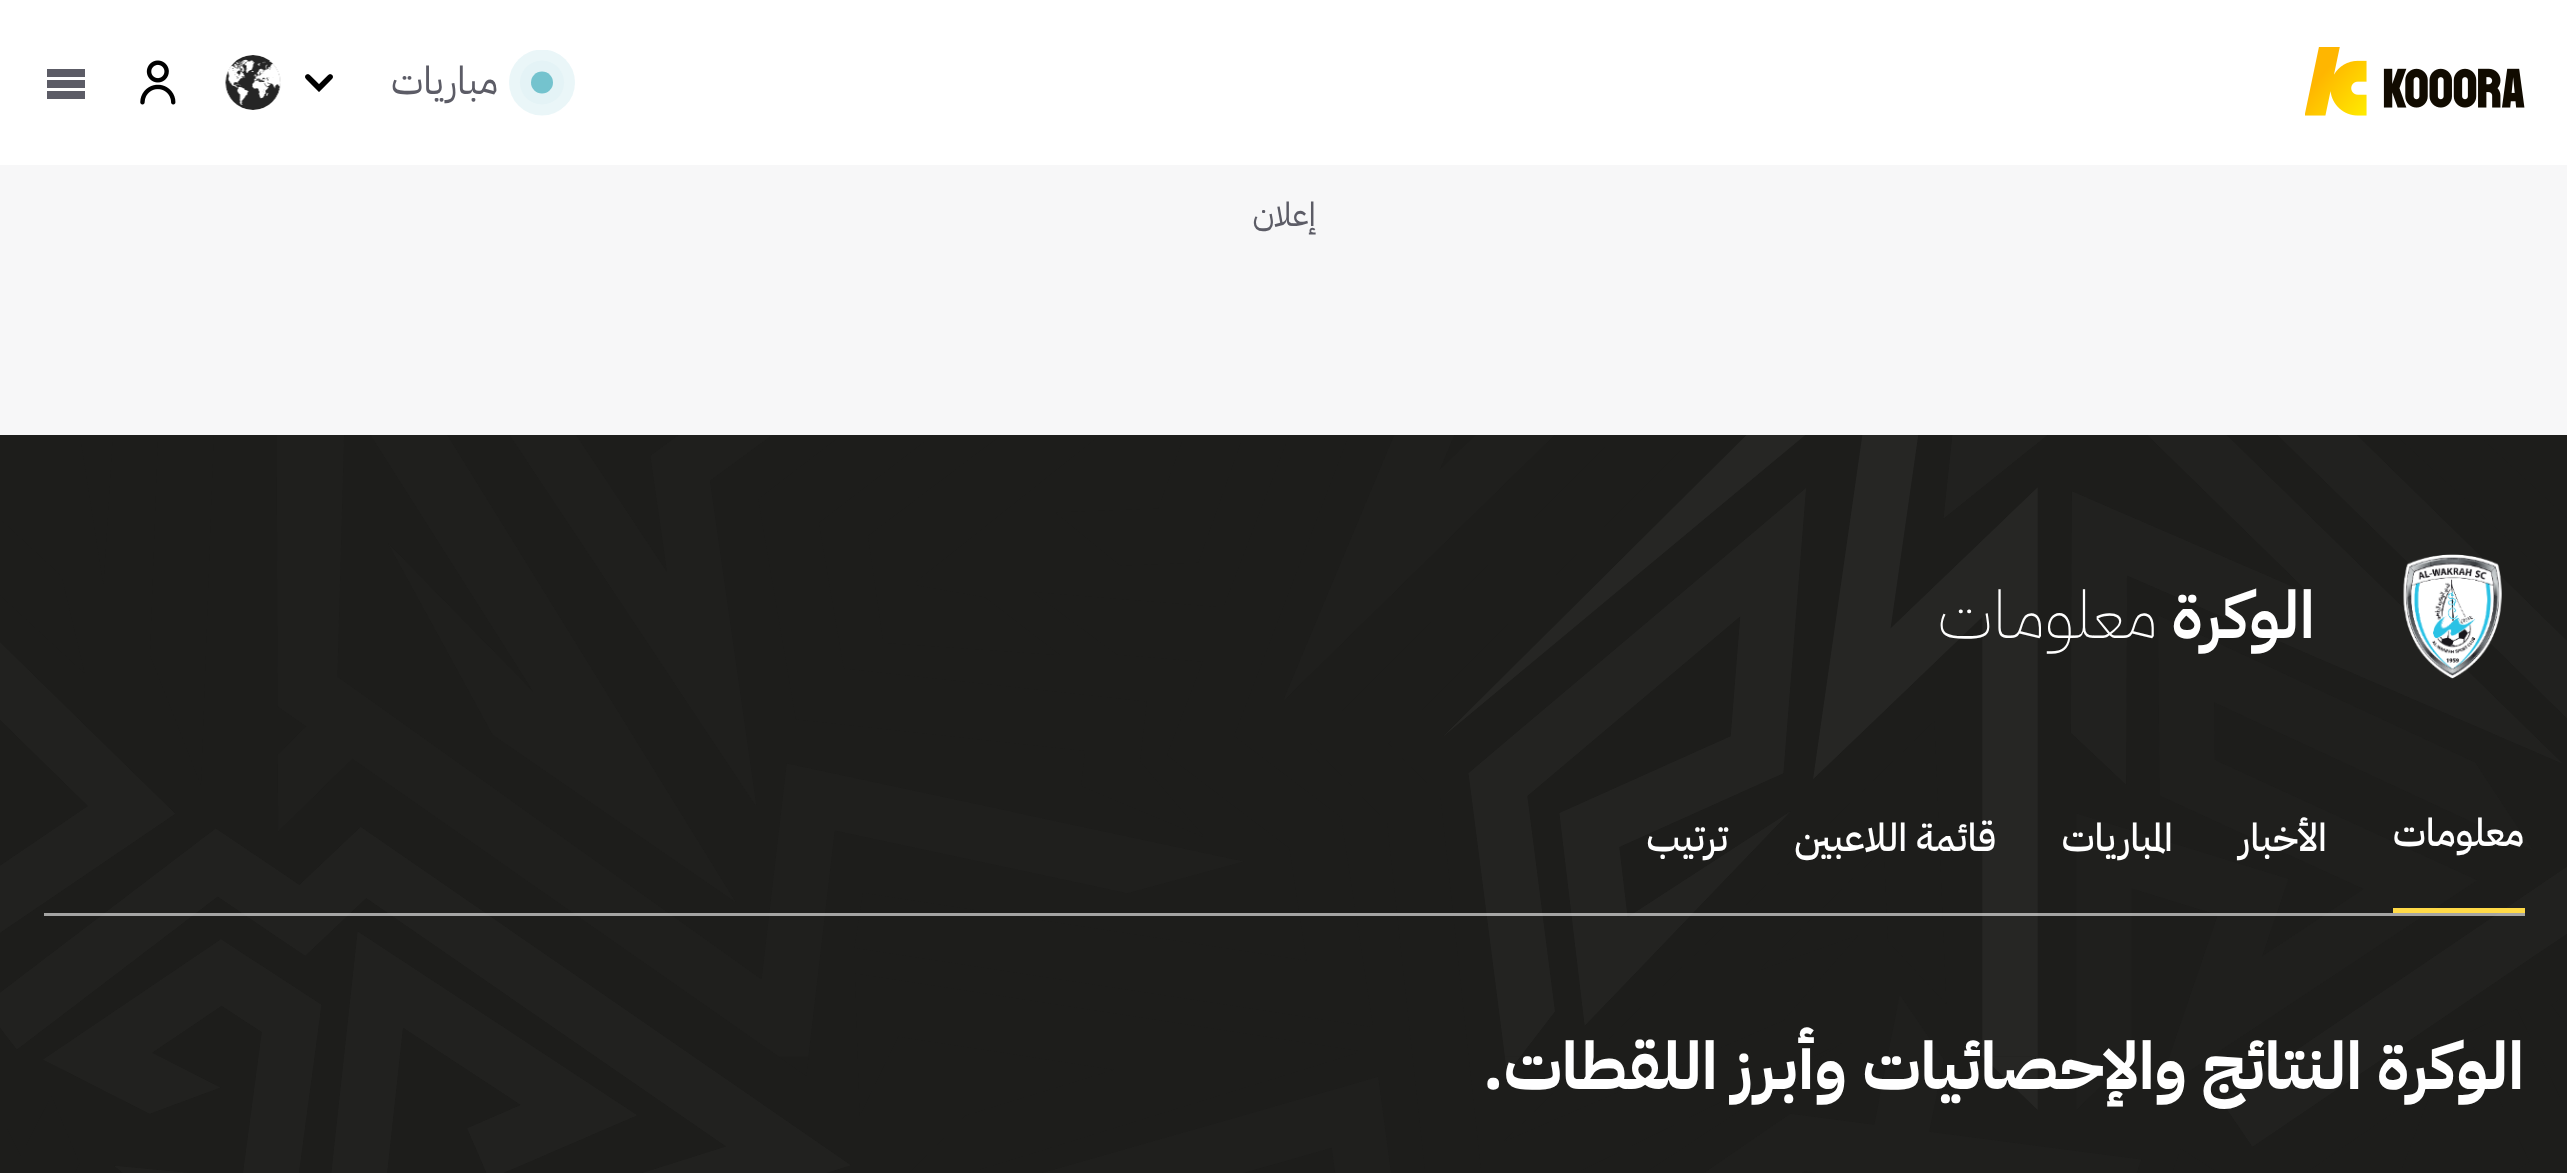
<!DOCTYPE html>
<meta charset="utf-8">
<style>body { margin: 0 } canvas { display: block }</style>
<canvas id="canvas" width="2567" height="1173"></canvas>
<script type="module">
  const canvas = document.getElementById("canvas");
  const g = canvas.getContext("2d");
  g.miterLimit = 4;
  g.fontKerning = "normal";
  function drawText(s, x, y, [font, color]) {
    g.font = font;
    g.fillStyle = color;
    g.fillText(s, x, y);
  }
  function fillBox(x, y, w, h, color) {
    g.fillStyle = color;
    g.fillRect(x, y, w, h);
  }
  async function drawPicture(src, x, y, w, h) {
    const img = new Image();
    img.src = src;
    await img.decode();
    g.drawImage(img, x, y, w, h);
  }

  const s1 = ["38.5px IBM Plex Sans Arabic", "#5C5C66"];
  const s2 = ["33px IBM Plex Sans Arabic", "#5C5C66"];
  const s3 = ["600 66px IBM Plex Sans Arabic", "#FFFFFF"];
  const s4 = ["200 66px IBM Plex Sans Arabic", "#FFFFFF"];
  const s5 = ["500 38.5px IBM Plex Sans Arabic", "#FFFFFF"];
  const s6 = ["bold 66px IBM Plex Sans Arabic", "#FFFFFF"];

  fillBox(0, 0, 2567, 1173, "#F7F7F8");
  fillBox(0, 0, 2567, 165, "#FFFFFF");
  await drawPicture("pic1.png", 2305, 47, 220, 69);
  g.fillStyle = "#F8FCFD";
  g.beginPath();
  g.arc(542, 82.5, 22, 0, Math.PI * 2);
  g.fill();
  g.save();
  g.beginPath();
  g.rect(509, 50, 66, 66);
  g.clip();
  g.fillStyle = "rgba(116, 195, 206, 0.15)";
  g.beginPath();
  g.arc(542, 82.5, 33, 0, Math.PI * 2);
  g.fill();
  g.restore();
  g.fillStyle = "#74C3CE";
  g.beginPath();
  g.arc(542, 82.5, 11, 0, Math.PI * 2);
  g.fill();
  g.direction = "rtl";
  drawText("مباريات", 498, 94, s1);
  await drawPicture("pic2.png", 305, 74, 28, 18);
  await drawPicture("pic3.png", 225, 55, 56, 55);
  await drawPicture("pic4.png", 140, 60, 36, 45);
  g.beginPath();
  g.moveTo(47, 69);
  g.lineTo(85, 69);
  g.lineTo(85, 77);
  g.lineTo(47, 77);
  g.closePath();
  g.moveTo(47, 80);
  g.lineTo(85, 80);
  g.lineTo(85, 88);
  g.lineTo(47, 88);
  g.closePath();
  g.moveTo(47, 91);
  g.lineTo(85, 91);
  g.lineTo(85, 99);
  g.lineTo(47, 99);
  g.closePath();
  g.fill();
  drawText("إعلان", 1316, 226, s2);
  fillBox(0, 435, 2567, 738, "#1D1D1B");
  await drawPicture("pic5.png", 0, 435, 2567, 738);
  await drawPicture("pic6.png", 2403, 554, 99, 125);
  drawText("الوكرة", 2315, 638, s3);
  drawText("معلومات", 2157, 638, s4);
  fillBox(44, 913, 2481, 3, "rgba(255, 255, 255, 0.6)");
  fillBox(2393, 908, 132, 5, "#FFDA47");
  drawText("معلومات", 2524, 846, s5);
  drawText("الأخبار", 2327, 851, s5);
  drawText("المباريات", 2173, 851, s5);
  drawText("قائمة اللاعبين", 1996, 851, s5);
  drawText("ترتيب", 1728, 851, s5);
  drawText("الوكرة النتائج والإحصائيات وأبرز اللقطات.", 2524, 1089, s6);
</script>
